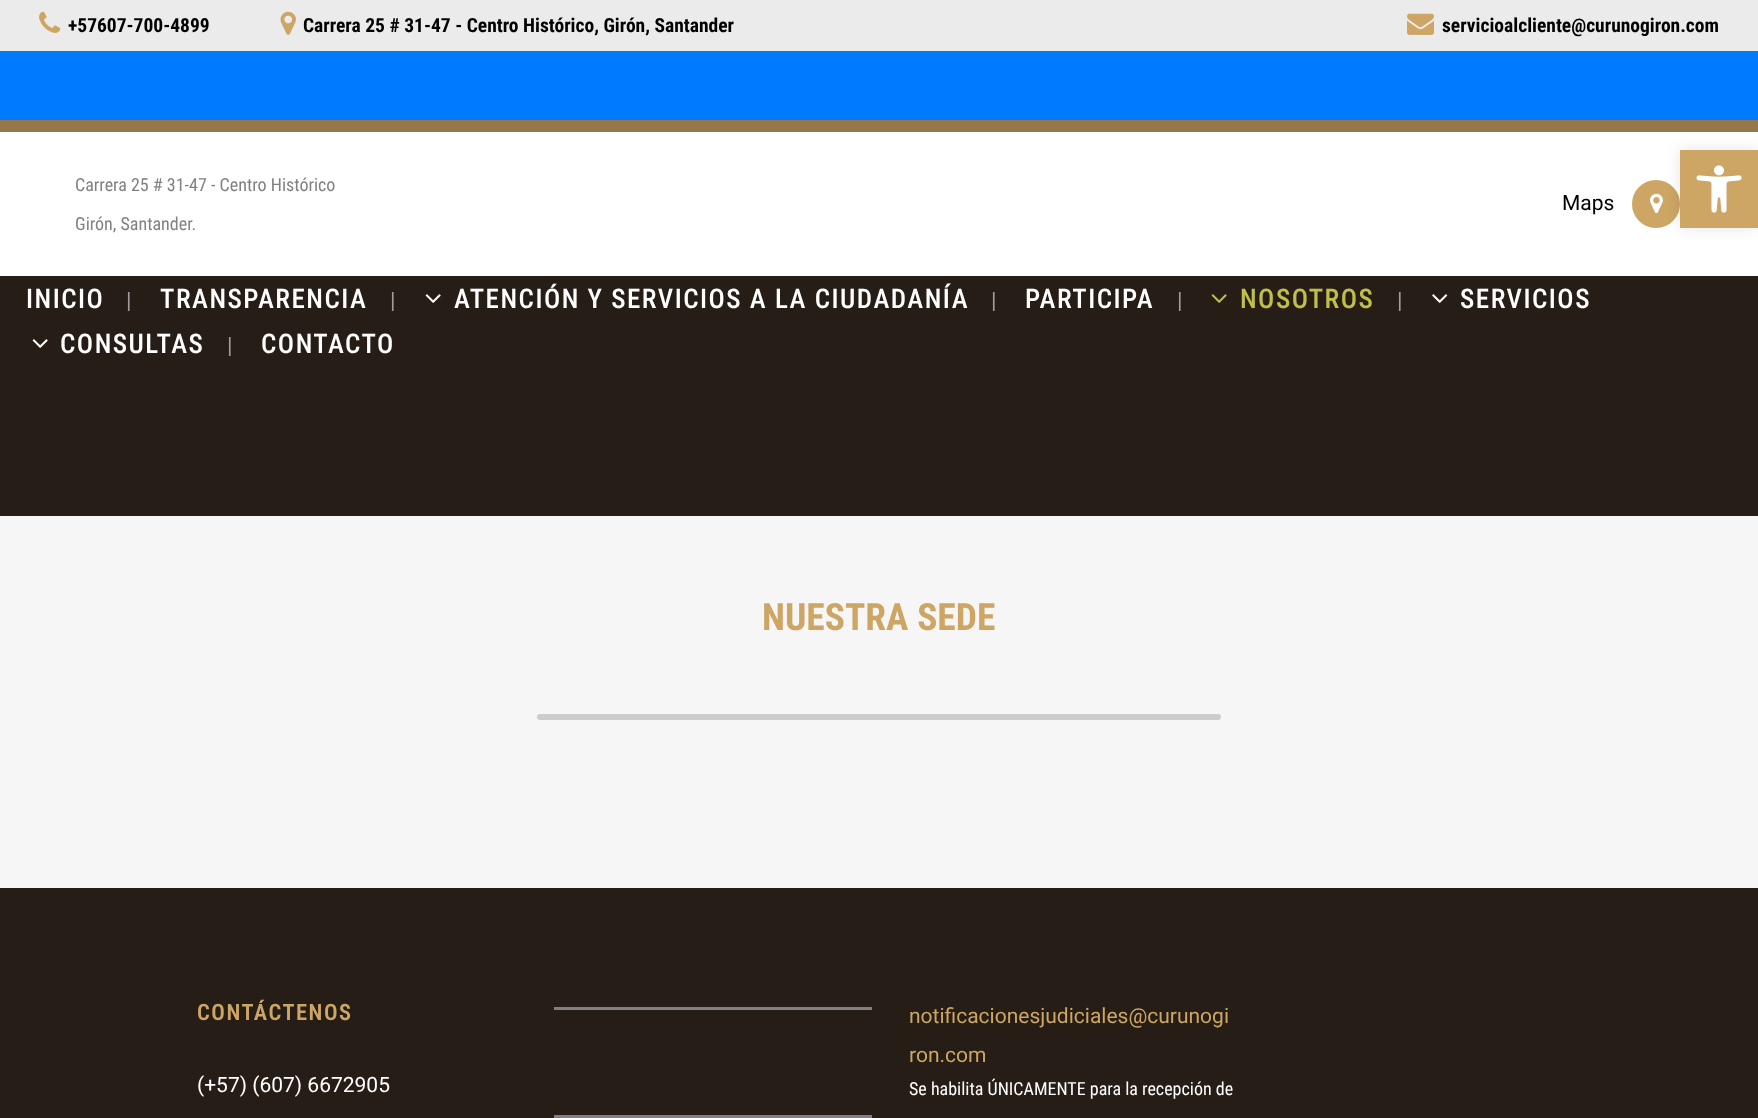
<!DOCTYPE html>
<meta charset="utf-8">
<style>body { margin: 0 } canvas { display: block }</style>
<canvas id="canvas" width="1758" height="1118"></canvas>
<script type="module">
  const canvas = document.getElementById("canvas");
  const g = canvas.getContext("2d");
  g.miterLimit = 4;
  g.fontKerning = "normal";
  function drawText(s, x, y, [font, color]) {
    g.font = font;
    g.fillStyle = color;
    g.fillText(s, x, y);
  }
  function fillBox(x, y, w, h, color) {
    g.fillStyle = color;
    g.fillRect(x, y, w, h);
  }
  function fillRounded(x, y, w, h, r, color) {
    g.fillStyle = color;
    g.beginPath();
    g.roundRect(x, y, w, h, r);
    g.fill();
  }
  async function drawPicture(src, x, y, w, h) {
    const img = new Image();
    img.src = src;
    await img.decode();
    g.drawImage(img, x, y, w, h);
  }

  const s1 = ["bold 19.5px Roboto Condensed", "#000000"];
  const s2 = ["18px Roboto Condensed", "#818181"];
  const s3 = ["21px Roboto", "#000000"];
  const s4 = ["500 27px Roboto Condensed", "#FFFFFF"];
  const s5 = ["22.5px Roboto Condensed", "#9E9E9E"];
  const s6 = ["500 27px Roboto Condensed", "#C0C049"];
  const s7 = ["bold 37.5px Roboto Condensed", "#CDA665"];
  const s8 = ["600 22.5px Roboto Condensed", "#CDA665"];
  const s9 = ["21px Roboto", "#FFFFFF"];
  const s10 = ["21px Roboto", "#CDA665"];
  const s11 = ["18px Roboto Condensed", "#FFFFFF"];

  fillBox(0, 0, 1758, 1118, "#F6F6F6");
  fillBox(0, 0, 1758, 51, "#EBEBEB");
  await drawPicture("pic1.png", 39, 11, 22, 22);
  drawText("+57607-700-4899", 68, 32, s1);
  await drawPicture("pic2.png", 280, 11, 16, 24);
  drawText("Carrera 25 # 31-47 - Centro Histórico, Girón, Santander", 303, 32, s1);
  await drawPicture("pic3.png", 1407, 13, 27, 22);
  drawText("servicioalcliente@curunogiron.com", 1442, 32, s1);
  fillBox(0, 51, 1758, 69, "#007BFF");
  fillBox(0, 276, 1758, 240, "#261D16");
  fillBox(0, 120, 1758, 12, "#94774B");
  fillBox(0, 132, 1758, 144, "#FFFFFF");
  drawText("Carrera 25 # 31-47 - Centro Histórico", 75, 191, s2);
  drawText("Girón, Santander.", 75, 230, s2);
  drawText("Maps", 1562, 210, s3);
  g.fillStyle = "#CDA665";
  g.beginPath();
  g.arc(1656, 204, 23, 0, Math.PI * 2);
  g.fill();
  g.strokeStyle = "#CDA665";
  g.lineWidth = 2;
  g.stroke();
  await drawPicture("pic4.png", 1650, 193, 13, 21);
  g.letterSpacing = "1.5px";
  drawText("INICIO", 26, 308, s4);
  g.letterSpacing = "0px";
  drawText("|", 126, 308, s5);
  g.letterSpacing = "1.5px";
  drawText("TRANSPARENCIA", 160, 308, s4);
  g.letterSpacing = "0px";
  drawText("|", 390, 308, s5);
  await drawPicture("pic5.png", 425, 294, 16, 9);
  g.letterSpacing = "1.5px";
  drawText("ATENCIÓN Y SERVICIOS A LA CIUDADANÍA", 454, 308, s4);
  g.letterSpacing = "0px";
  drawText("|", 991, 308, s5);
  g.letterSpacing = "1.5px";
  drawText("PARTICIPA", 1025, 308, s4);
  g.letterSpacing = "0px";
  drawText("|", 1177, 308, s5);
  await drawPicture("pic6.png", 1211, 294, 16, 9);
  g.letterSpacing = "1.5px";
  drawText("NOSOTROS", 1240, 308, s6);
  g.letterSpacing = "0px";
  drawText("|", 1397, 308, s5);
  await drawPicture("pic7.png", 1432, 294, 16, 9);
  g.letterSpacing = "1.5px";
  drawText("SERVICIOS", 1460, 308, s4);
  await drawPicture("pic5.png", 32, 339, 16, 9);
  drawText("CONSULTAS", 60, 353, s4);
  g.letterSpacing = "0px";
  drawText("|", 227, 353, s5);
  g.letterSpacing = "1.5px";
  drawText("CONTACTO", 261, 353, s4);
  g.letterSpacing = "0px";
  drawText("NUESTRA SEDE", 762, 630, s7);
  fillRounded(537, 714, 684, 6, 3, "#CCCCCC");
  fillBox(0, 888, 1758, 230, "#261D16");
  g.letterSpacing = "1.5px";
  drawText("CONTÁCTENOS", 197, 1020, s8);
  g.letterSpacing = "0px";
  drawText("(+57) (607) 6672905", 197, 1092, s9);
  fillBox(554, 1007, 318, 3, "#808080");
  fillBox(554, 1115, 318, 3, "#808080");
  drawText("notificacionesjudiciales@curunogi", 909, 1023, s10);
  drawText("ron.com", 909, 1062, s10);
  drawText("Se habilita ÚNICAMENTE para la recepción de", 909, 1095, s11);
  g.fillStyle = "rgba(0, 0, 0, 0.1)";
  g.filter = "blur(7.5px)";
  g.beginPath();
  g.rect(1680, 150, 78, 78);
  g.fill();
  g.filter = "none";
  fillBox(1680, 150, 78, 78, "#CDA665");
  await drawPicture("pic8.png", 1696, 165, 46, 48);
</script>
